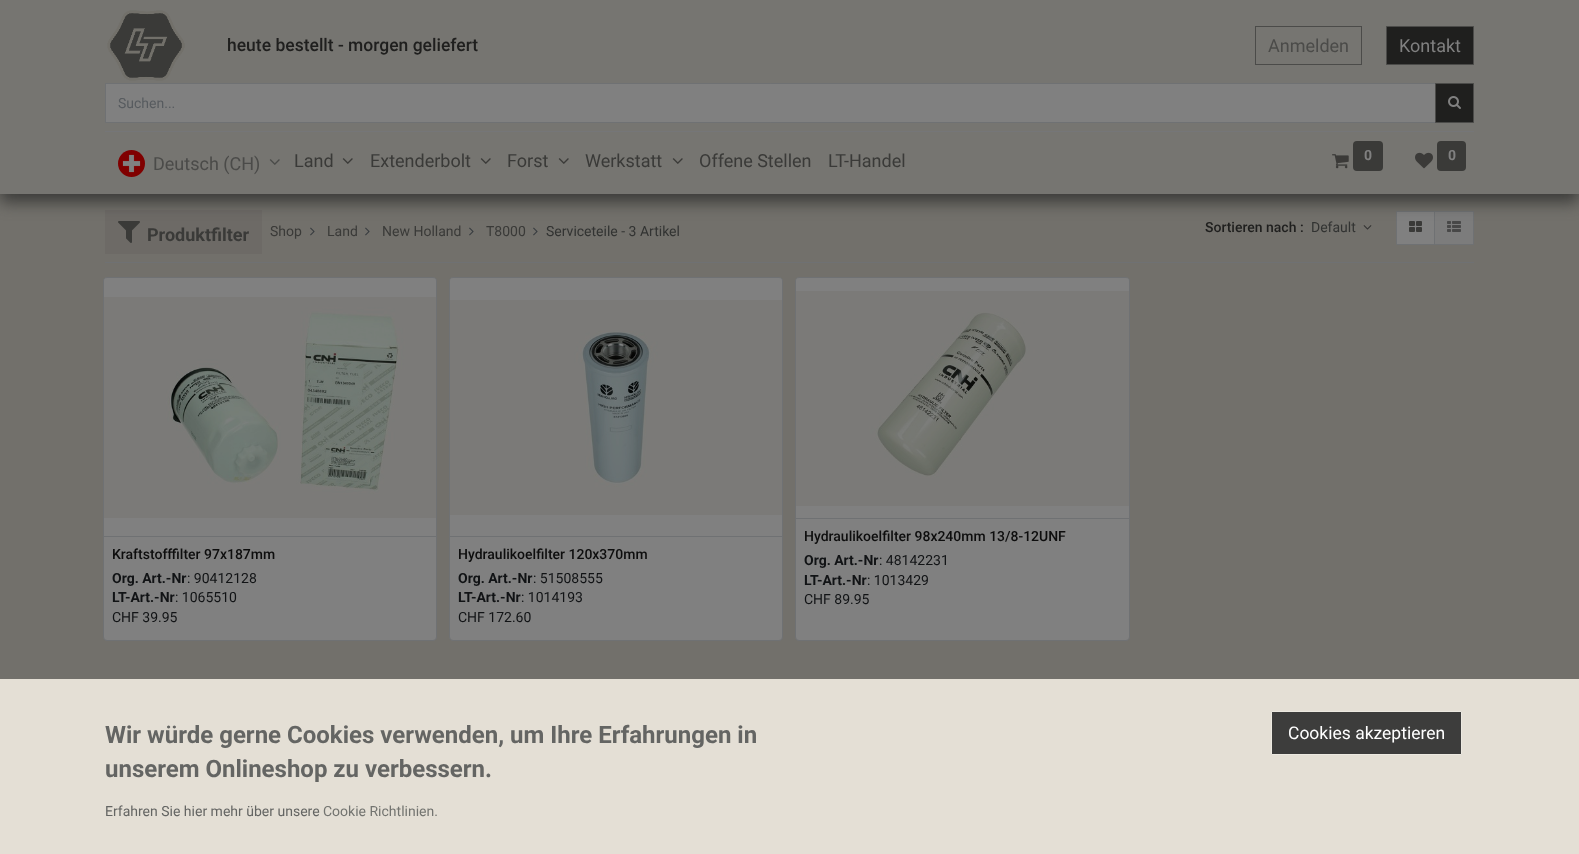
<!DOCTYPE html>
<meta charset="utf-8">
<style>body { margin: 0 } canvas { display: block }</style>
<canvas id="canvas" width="1579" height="854"></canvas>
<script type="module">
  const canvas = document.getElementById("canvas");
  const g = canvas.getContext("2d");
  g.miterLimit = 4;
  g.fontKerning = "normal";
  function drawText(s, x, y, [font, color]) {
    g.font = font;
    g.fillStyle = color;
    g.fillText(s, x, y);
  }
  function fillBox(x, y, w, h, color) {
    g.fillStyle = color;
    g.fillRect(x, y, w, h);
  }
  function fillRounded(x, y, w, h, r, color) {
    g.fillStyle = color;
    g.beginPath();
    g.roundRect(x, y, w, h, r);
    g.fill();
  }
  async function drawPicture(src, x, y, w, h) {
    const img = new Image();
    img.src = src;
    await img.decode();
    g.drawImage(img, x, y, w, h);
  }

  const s1 = ["500 17.5px Roboto", "#1F1F1E"];
  const s2 = ["18px Roboto", "#4B4B49"];
  const s3 = ["18px Roboto", "#808080"];
  const s4 = ["14px Roboto", "#575B5F"];
  const s5 = ["18px Roboto", "#3A3A38"];
  const s6 = ["bold 14px Roboto", "#808080"];
  const s7 = ["bold 18px Roboto", "#3A3A38"];
  const s8 = ["14px Roboto", "#3A3A38"];
  const s9 = ["14px Roboto", "#323332"];
  const s10 = ["500 14px Roboto", "#1F1F1E"];
  const s11 = ["500 14px Roboto", "#0D0D0D"];
  const s12 = ["bold 14px Roboto", "#111315"];
  const s13 = ["14px Roboto", "#111315"];
  const s14 = ["bold 24px Roboto", "#646563"];
  const s15 = ["14px Roboto", "#646563"];
  const s16 = ["14px Roboto", "#737470"];
  const s17 = ["17.5px Roboto", "#FFFFFF"];

  fillBox(0, 0, 1579, 854, "#72706B");
  fillBox(105, 210, 157, 44, "#6D6A66");
  await drawPicture("pic8.png", 118, 221, 22, 22);
  await drawPicture("pic10.png", 1363, 225, 9, 5);
  g.fillStyle = "#7C7C7C";
  g.beginPath();
  g.rect(1434.5, 211.5, 39, 33);
  g.fill();
  g.strokeStyle = "#6F7173";
  g.stroke();
  g.fillStyle = "#808080";
  g.beginPath();
  g.rect(1396.5, 211.5, 38, 33);
  g.fill();
  g.stroke();
  await drawPicture("pic11.png", 1409, 221, 13, 11);
  await drawPicture("pic12.png", 1447, 221, 14, 11);
  g.fillStyle = "#3A3A38";
  g.filter = "blur(8px)";
  g.beginPath();
  g.rect(0, 8, 1579, 194);
  g.fill();
  g.filter = "none";
  fillBox(0, 0, 1579, 194, "#767571");
  await drawPicture("pic1.png", 107, 10, 78, 71);
  drawText("heute bestellt - morgen geliefert", 227, 51, s1);
  g.strokeStyle = "#4B4B49";
  g.strokeRect(1255.5, 26.5, 106, 38);
  drawText("Anmelden", 1268, 52, s2);
  g.fillStyle = "#1F1F1E";
  g.beginPath();
  g.rect(1386.5, 26.5, 87, 38);
  g.fill();
  g.stroke();
  drawText("Kontakt", 1399, 52, s3);
  g.beginPath();
  g.rect(105.5, 83.5, 1330, 39);
  g.fill();
  g.strokeStyle = "#6F7173";
  g.stroke();
  drawText("Suchen...", 118, 108, s4);
  g.fillStyle = "#1F1F1E";
  g.beginPath();
  g.rect(1435.5, 83.5, 38, 39);
  g.fill();
  g.strokeStyle = "#4B4B49";
  g.stroke();
  await drawPicture("pic2.png", 1448, 96, 13, 13);
  fillBox(105, 131, 1369, 1, "#757678");
  await drawPicture("pic3.png", 118, 150, 27, 27);
  drawText("Deutsch (CH)", 153, 170, s2);
  await drawPicture("pic4.png", 269, 159, 11, 6);
  drawText("Land", 294, 167, s5);
  await drawPicture("pic5.png", 342, 158, 11, 6);
  drawText("Extenderbolt", 370, 167, s5);
  await drawPicture("pic5.png", 480, 158, 11, 6);
  drawText("Forst", 507, 167, s5);
  await drawPicture("pic5.png", 558, 158, 11, 6);
  drawText("Werkstatt", 585, 167, s5);
  await drawPicture("pic5.png", 672, 158, 11, 6);
  drawText("Offene Stellen", 699, 167, s5);
  drawText("LT-Handel", 828, 167, s5);
  await drawPicture("pic6.png", 1332, 154, 17, 15);
  fillRounded(1353, 141, 30, 30, 4, "#3A3A38");
  drawText("0", 1364, 160, s6);
  await drawPicture("pic7.png", 1415, 152, 18, 17);
  fillRounded(1437, 141, 29, 30, 4, "#3A3A38");
  drawText("0", 1448, 160, s6);
  drawText("Produktfilter", 147, 241, s7);
  drawText("Shop", 270, 236, s8);
  await drawPicture("pic9.png", 310, 227, 5, 9);
  drawText("Land", 327, 236, s8);
  await drawPicture("pic9.png", 365, 227, 5, 9);
  drawText("New Holland", 382, 236, s8);
  await drawPicture("pic9.png", 469, 227, 5, 9);
  drawText("T8000", 486, 236, s8);
  await drawPicture("pic9.png", 533, 227, 5, 9);
  drawText("Serviceteile - 3 Artikel", 546, 236, s9);
  drawText("Sortieren nach :", 1205, 232, s10);
  drawText("Default", 1311, 232, s9);
  fillBox(105, 262, 1369, 1, "#6F7173");
  g.fillStyle = "#808080";
  g.beginPath();
  g.roundRect(103.5, 277.5, 333, 363, 3.5);
  g.fill();
  g.strokeStyle = "#6F7173";
  g.stroke();
  g.fillStyle = "rgba(128, 128, 128, 0.9)";
  g.beginPath();
  g.roundRect(104, 278, 332, 258, [3, 3, 0, 0]);
  g.fill();
  await drawPicture("pic13.png", 104, 297, 332, 221);
  fillBox(104, 536, 332, 1, "#6F7173");
  drawText("Kraftstofffilter 97x187mm", 112, 559, s11);
  drawText("Org. Art.-Nr", 112, 583, s12);
  drawText(": 90412128", 187, 583, s13);
  drawText("LT-Art.-Nr", 112, 602, s12);
  drawText(": 1065510", 175, 602, s13);
  drawText("CHF 39.95", 112, 622, s13);
  g.fillStyle = "#808080";
  g.beginPath();
  g.roundRect(449.5, 277.5, 333, 363, 3.5);
  g.fill();
  g.stroke();
  g.fillStyle = "rgba(128, 128, 128, 0.9)";
  g.beginPath();
  g.roundRect(450, 278, 332, 258, [3, 3, 0, 0]);
  g.fill();
  await drawPicture("pic14.png", 450, 300, 332, 215);
  fillBox(450, 536, 332, 1, "#6F7173");
  drawText("Hydraulikoelfilter 120x370mm", 458, 559, s11);
  drawText("Org. Art.-Nr", 458, 583, s12);
  drawText(": 51508555", 533, 583, s13);
  drawText("LT-Art.-Nr", 458, 602, s12);
  drawText(": 1014193", 521, 602, s13);
  drawText("CHF 172.60", 458, 622, s13);
  g.fillStyle = "#808080";
  g.beginPath();
  g.roundRect(795.5, 277.5, 334, 363, 3.5);
  g.fill();
  g.stroke();
  g.fillStyle = "rgba(128, 128, 128, 0.9)";
  g.beginPath();
  g.roundRect(796, 278, 333, 240, [3, 3, 0, 0]);
  g.fill();
  await drawPicture("pic15.png", 796, 291, 333, 215);
  fillBox(796, 518, 333, 1, "#6F7173");
  drawText("Hydraulikoelfilter 98x240mm 13/8-12UNF", 804, 541, s11);
  drawText("Org. Art.-Nr", 804, 565, s12);
  drawText(": 48142231", 879, 565, s13);
  drawText("LT-Art.-Nr", 804, 585, s12);
  drawText(": 1013429", 867, 585, s13);
  drawText("CHF 89.95", 804, 604, s13);
  fillBox(0, 679, 1579, 175, "#E4DFD5");
  drawText("Wir würde gerne Cookies verwenden, um Ihre Erfahrungen in", 105, 743, s14);
  drawText("unserem Onlineshop zu verbessern.", 105, 777, s14);
  drawText("Erfahren Sie hier mehr über unsere", 105, 816, s15);
  drawText("Cookie Richtlinien.", 323, 816, s16);
  g.fillStyle = "#3D3D3C";
  g.beginPath();
  g.rect(1271.5, 711.5, 190, 43);
  g.fill();
  g.strokeStyle = "#ECE9E1";
  g.stroke();
  drawText("Cookies akzeptieren", 1288, 739, s17);
</script>
